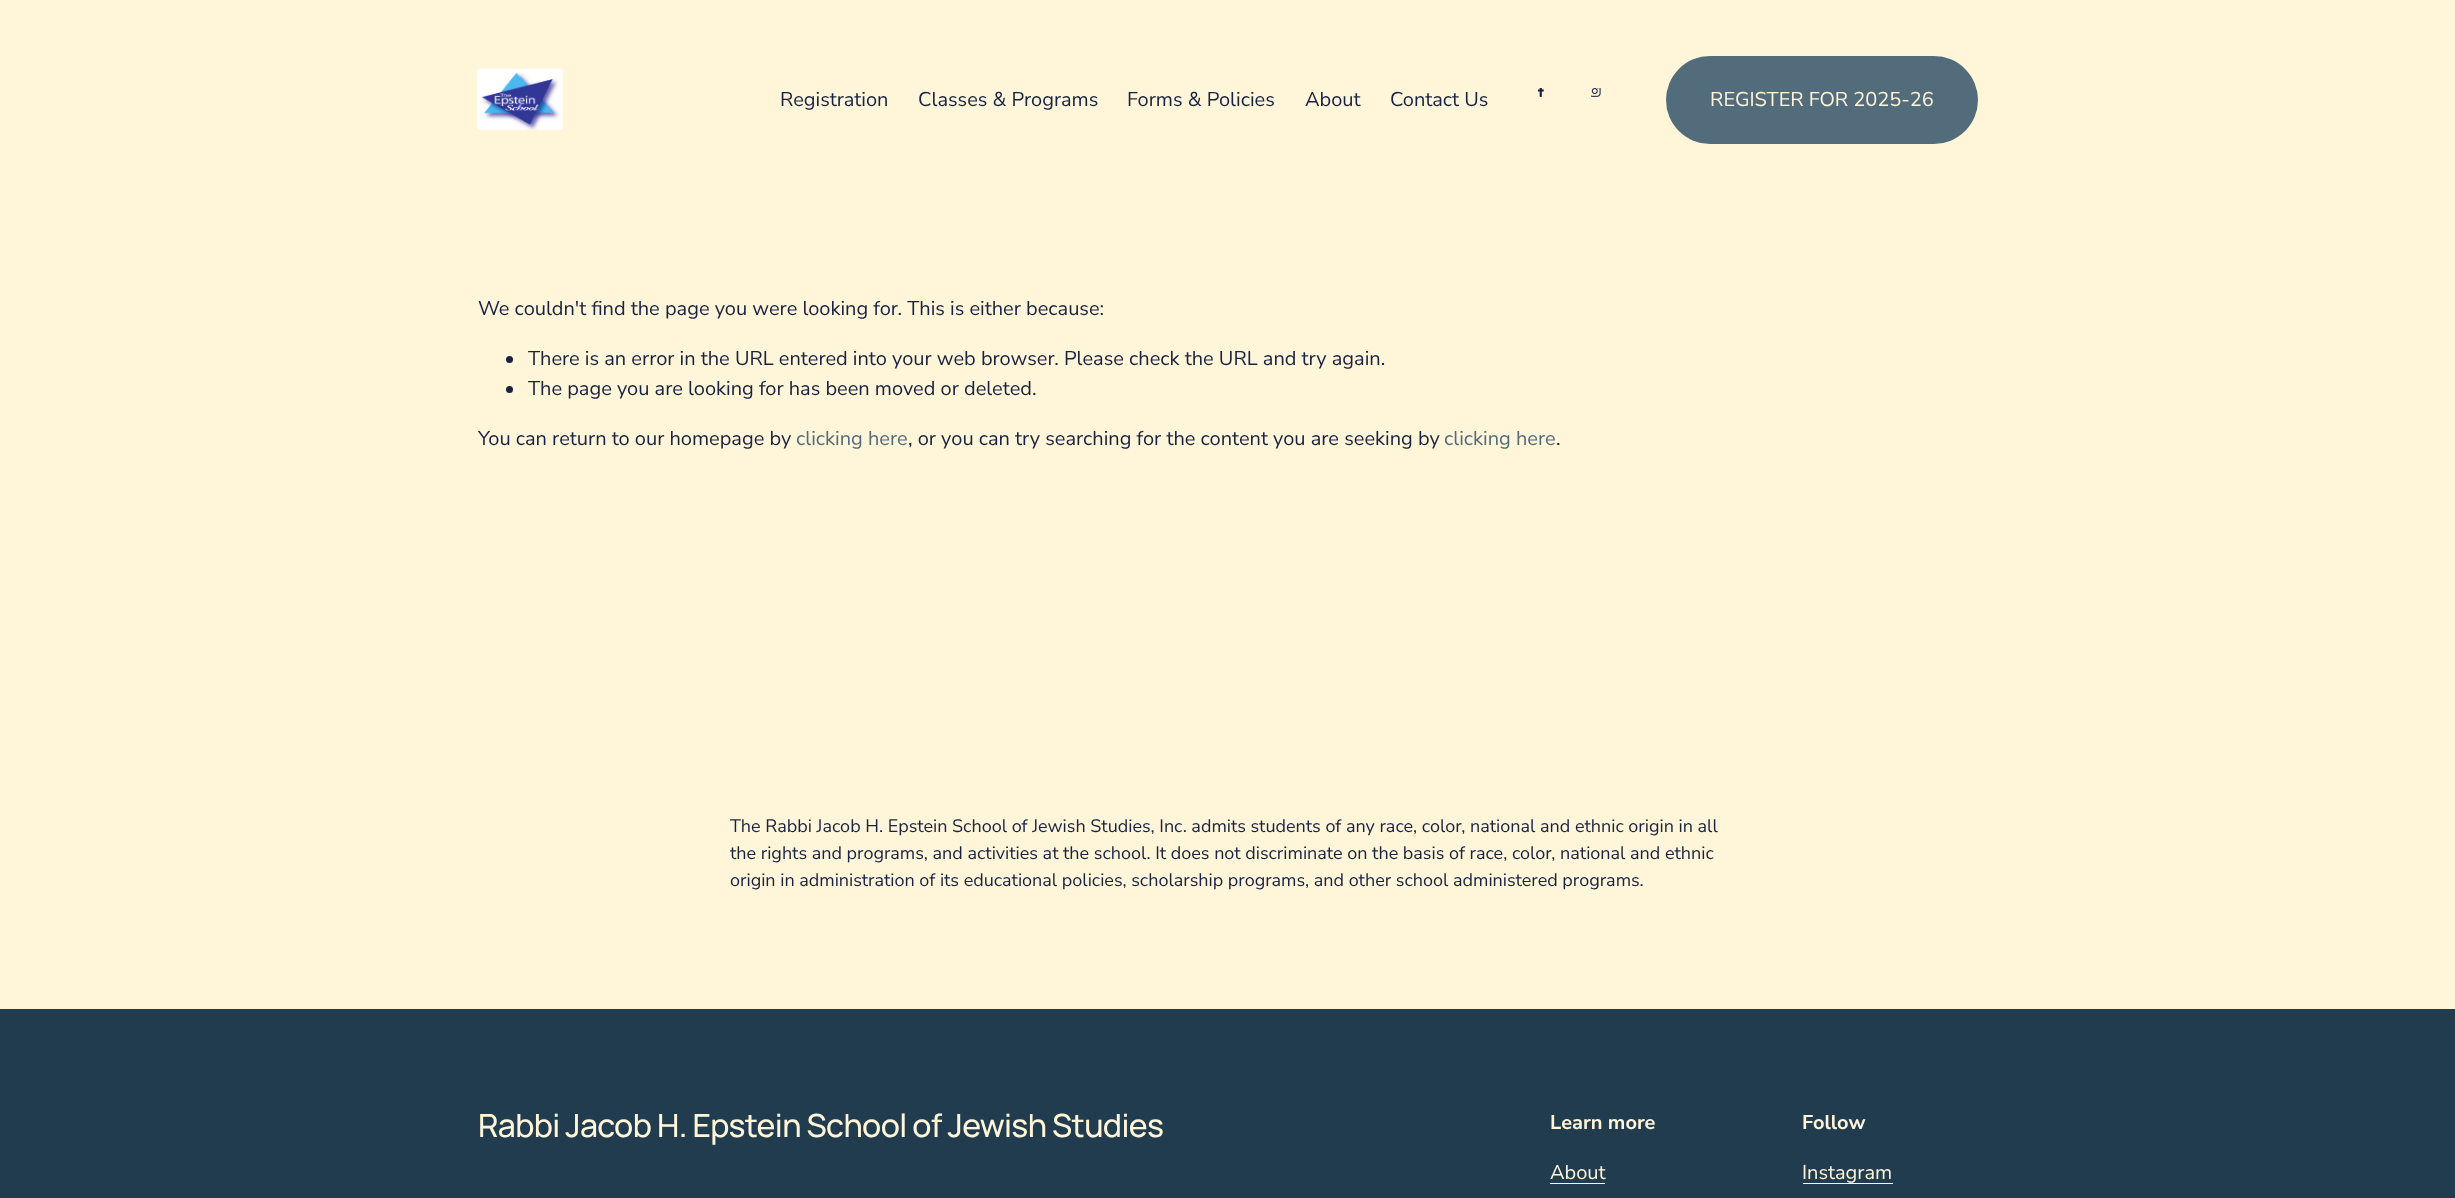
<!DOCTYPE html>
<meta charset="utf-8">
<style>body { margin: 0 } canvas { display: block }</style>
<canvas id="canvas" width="2455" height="1198"></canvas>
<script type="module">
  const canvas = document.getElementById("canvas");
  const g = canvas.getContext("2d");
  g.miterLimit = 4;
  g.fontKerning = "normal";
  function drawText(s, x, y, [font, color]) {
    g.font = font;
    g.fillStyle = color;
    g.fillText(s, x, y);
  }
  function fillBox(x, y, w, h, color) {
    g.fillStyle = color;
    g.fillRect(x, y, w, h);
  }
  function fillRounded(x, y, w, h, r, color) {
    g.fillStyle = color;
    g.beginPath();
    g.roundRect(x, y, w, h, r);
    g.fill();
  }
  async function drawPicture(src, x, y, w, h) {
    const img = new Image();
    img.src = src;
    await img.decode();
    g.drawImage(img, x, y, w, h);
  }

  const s1 = ["20px Nunito Sans", "#182241"];
  const s2 = ["20px Nunito Sans", "#FFF5D9"];
  const s3 = ["20px Nunito Sans", "#536C7C"];
  const s4 = ["18px Nunito Sans", "#182241"];
  const s5 = ["500 32px Manrope", "#FFF5D9"];
  const s6 = ["bold 20px Nunito Sans", "#FFF5D9"];

  fillBox(0, 0, 2455, 1198, "#FFF5D9");
  await drawPicture("pic1.png", 477, 68, 86, 63);
  drawText("Registration", 780, 106, s1);
  drawText("Classes & Programs", 918, 106, s1);
  drawText("Forms & Policies", 1127, 106, s1);
  drawText("About", 1305, 106, s1);
  drawText("Contact Us", 1390, 106, s1);
  await drawPicture("pic2.png", 1538, 88, 6, 9);
  await drawPicture("pic3.png", 1591, 88, 10, 9);
  fillRounded(1666, 56, 312, 88, 44, "#536C7C");
  drawText("REGISTER FOR 2025-26", 1710, 106, s2);
  drawText("We couldn't find the page you were looking for. This is either because:", 478, 315, s1);
  g.beginPath();
  g.arc(509.5, 359.5, 3.5, 0, Math.PI * 2);
  g.fill();
  drawText("There is an error in the URL entered into your web browser. Please check the URL and try again.", 528, 365, s1);
  g.beginPath();
  g.arc(509.5, 389.5, 3.5, 0, Math.PI * 2);
  g.fill();
  drawText("The page you are looking for has been moved or deleted.", 528, 395, s1);
  drawText("You can return to our homepage by", 478, 445, s1);
  drawText("clicking here", 796, 445, s3);
  drawText(", or you can try searching for the content you are seeking by", 908, 445, s1);
  drawText("clicking here", 1444, 445, s3);
  drawText(".", 1556, 445, s1);
  drawText("The Rabbi Jacob H. Epstein School of Jewish Studies, Inc. admits students of any race, color, national and ethnic origin in all", 730, 832, s4);
  drawText("the rights and programs, and activities at the school. It does not discriminate on the basis of race, color, national and ethnic", 730, 859, s4);
  drawText("origin in administration of its educational policies, scholarship programs, and other school administered programs.", 730, 886, s4);
  fillBox(0, 1009, 2455, 189, "#213C4E");
  g.letterSpacing = "-0.65px";
  drawText("Rabbi Jacob H. Epstein School of Jewish Studies", 478, 1137, s5);
  g.letterSpacing = "0px";
  drawText("Learn more", 1550, 1129, s6);
  drawText("About", 1550, 1179, s2);
  fillBox(1550, 1183, 55, 1, "#FFF5D9");
  drawText("Follow", 1802, 1129, s6);
  drawText("Instagram", 1802, 1179, s2);
  fillBox(1803, 1183, 90, 1, "#FFF5D9");
</script>
